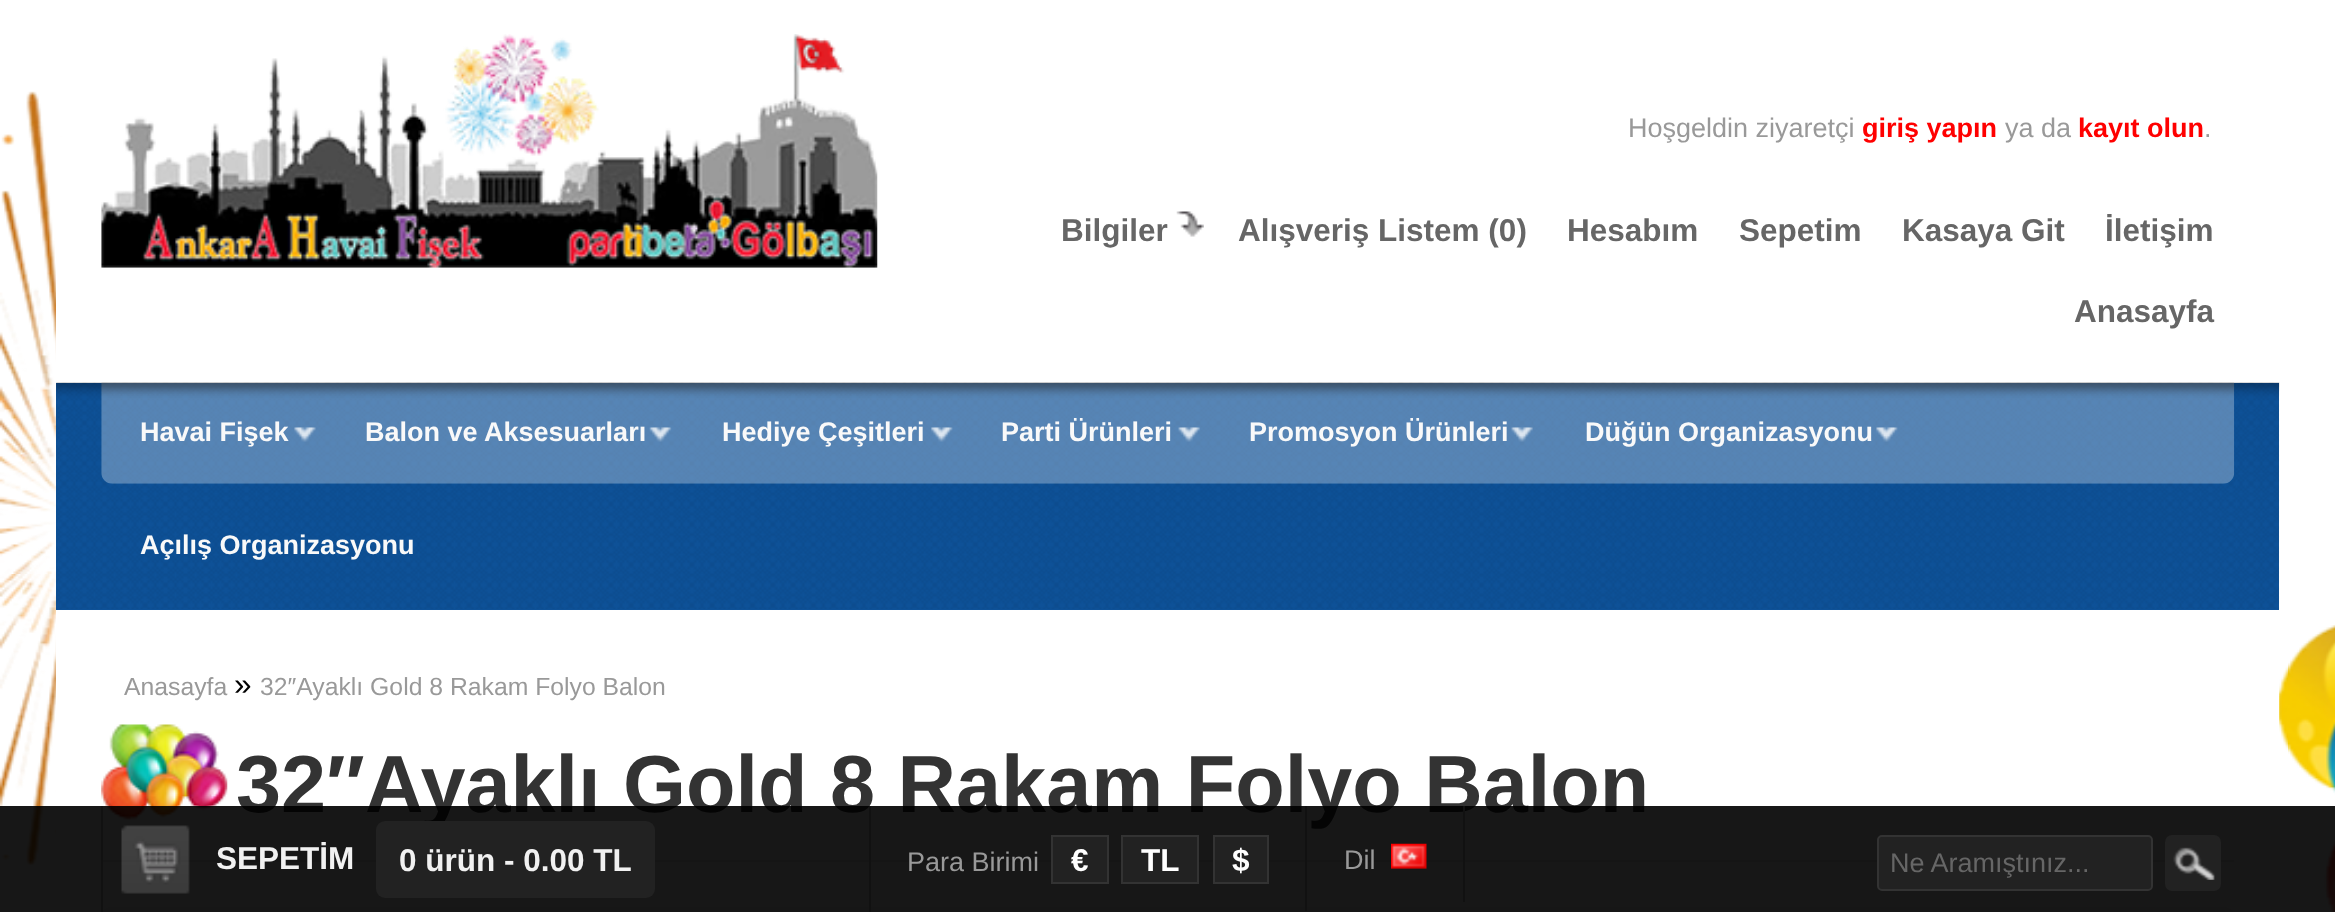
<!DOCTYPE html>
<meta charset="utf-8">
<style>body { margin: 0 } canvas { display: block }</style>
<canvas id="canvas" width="2335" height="912"></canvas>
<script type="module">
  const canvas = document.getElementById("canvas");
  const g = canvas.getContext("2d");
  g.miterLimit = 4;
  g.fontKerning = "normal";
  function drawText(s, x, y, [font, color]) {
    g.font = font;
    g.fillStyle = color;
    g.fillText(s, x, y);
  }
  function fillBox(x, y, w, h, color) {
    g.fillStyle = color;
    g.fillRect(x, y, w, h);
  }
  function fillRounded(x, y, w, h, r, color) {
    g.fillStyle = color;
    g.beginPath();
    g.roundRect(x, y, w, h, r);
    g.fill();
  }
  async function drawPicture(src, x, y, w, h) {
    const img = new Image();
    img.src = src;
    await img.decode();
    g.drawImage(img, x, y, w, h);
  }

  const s1 = ["27px Liberation Sans", "#999999"];
  const s2 = ["bold 27px Liberation Sans", "#FF0000"];
  const s3 = ["bold 31.5px Liberation Sans", "#666666"];
  const s4 = ["bold 27px Liberation Sans", "#F9F9F9"];
  const s5 = ["24.75px Liberation Sans", "#999999"];
  const s6 = ["31.5px Liberation Sans", "#000000"];
  const s7 = ["bold 81px Liberation Sans", "#333333"];
  const s8 = ["bold 31.5px Liberation Sans", "#F1F1F1"];
  const s9 = ["bold 31.5px Liberation Sans", "#FFFFFF"];
  const s10 = ["27px Liberation Sans", "#666666"];

  fillBox(0, 0, 2335, 912, "#FFFFFF");
  await drawPicture("pic1.png", 0, 91, 2335, 821);
  fillBox(56, 137, 2223, 701, "#FFFFFF");
  await drawPicture("pic2.png", 101, 34, 777, 234);
  drawText("Hoşgeldin ziyaretçi", 1628, 137, s1);
  drawText("giriş yapın", 1862, 137, s2);
  drawText("ya da", 2005, 137, s1);
  drawText("kayıt olun", 2078, 137, s2);
  drawText(".", 2204, 137, s1);
  await drawPicture("pic3.png", 1176, 211, 28, 26);
  drawText("Bilgiler", 1061, 241, s3);
  drawText("Alışveriş Listem (0)", 1238, 241, s3);
  drawText("Hesabım", 1567, 241, s3);
  drawText("Sepetim", 1739, 241, s3);
  drawText("Kasaya Git", 1902, 241, s3);
  drawText("İletişim", 2105, 241, s3);
  drawText("Anasayfa", 2074, 322, s3);
  fillBox(56, 383, 2223, 227, "#0E5197");
  await drawPicture("pic4.png", 56, 382, 2224, 227);
  await drawPicture("pic5.png", 101, 382, 2134, 102);
  await drawPicture("pic6.png", 294, 427, 22, 15);
  drawText("Havai Fişek", 140, 441, s4);
  await drawPicture("pic7.png", 649, 427, 23, 15);
  drawText("Balon ve Aksesuarları", 365, 441, s4);
  await drawPicture("pic8.png", 931, 427, 22, 15);
  drawText("Hediye Çeşitleri", 722, 441, s4);
  await drawPicture("pic9.png", 1178, 427, 22, 15);
  drawText("Parti Ürünleri", 1001, 441, s4);
  await drawPicture("pic10.png", 1511, 427, 22, 15);
  drawText("Promosyon Ürünleri", 1249, 441, s4);
  await drawPicture("pic11.png", 1876, 427, 22, 15);
  drawText("Düğün Organizasyonu", 1585, 441, s4);
  drawText("Açılış Organizasyonu", 140, 554, s4);
  drawText("Anasayfa", 124, 695, s5);
  drawText("»", 234, 695, s6);
  drawText("32″Ayaklı Gold 8 Rakam Folyo Balon", 260, 695, s5);
  await drawPicture("pic12.png", 101, 724, 127, 96);
  fillBox(101, 860, 2133, 2, "#E1E1E1");
  drawText("32″Ayaklı Gold 8 Rakam Folyo Balon", 236, 812, s7);
  g.fillStyle = "#F5F5F5";
  g.beginPath();
  g.roundRect(102, 908, 2131, 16, 10);
  g.fill();
  g.strokeStyle = "#F1F1F1";
  g.lineWidth = 2;
  g.stroke();
  fillBox(0, 806, 2335, 106, "rgba(0, 0, 0, 0.91)");
  fillBox(869, 806, 2, 106, "#111111");
  fillBox(101, 806, 2, 106, "#111111");
  await drawPicture("pic13.png", 121, 825, 69, 69);
  drawText("SEPETİM", 216, 869, s8);
  fillRounded(376, 821, 279, 77, 9, "#222222");
  drawText("0 ürün - 0.00 TL", 399, 871, s8);
  fillBox(1305, 806, 2, 105, "#111111");
  drawText("Para Birimi", 907, 871, s1);
  g.fillStyle = "#222222";
  g.beginPath();
  g.rect(1052, 836, 56, 47);
  g.fill();
  g.strokeStyle = "#333333";
  g.stroke();
  drawText("€", 1071, 871, s9);
  g.fillStyle = "#222222";
  g.beginPath();
  g.rect(1122, 836, 76, 47);
  g.fill();
  g.stroke();
  drawText("TL", 1141, 871, s9);
  g.fillStyle = "#222222";
  g.beginPath();
  g.rect(1214, 836, 54, 47);
  g.fill();
  g.stroke();
  drawText("$", 1232, 871, s9);
  fillBox(1463, 806, 2, 96, "#111111");
  drawText("Dil", 1344, 869, s1);
  await drawPicture("pic14.png", 1391, 843, 36, 26);
  g.fillStyle = "#222222";
  g.beginPath();
  g.roundRect(1878, 836, 274, 54, 4);
  g.fill();
  g.stroke();
  drawText("Ne Aramıştınız...", 1890, 872, s10);
  fillRounded(2165, 835, 56, 56, 7, "#222222");
  await drawPicture("pic15.png", 2173, 847, 42, 33);
</script>
